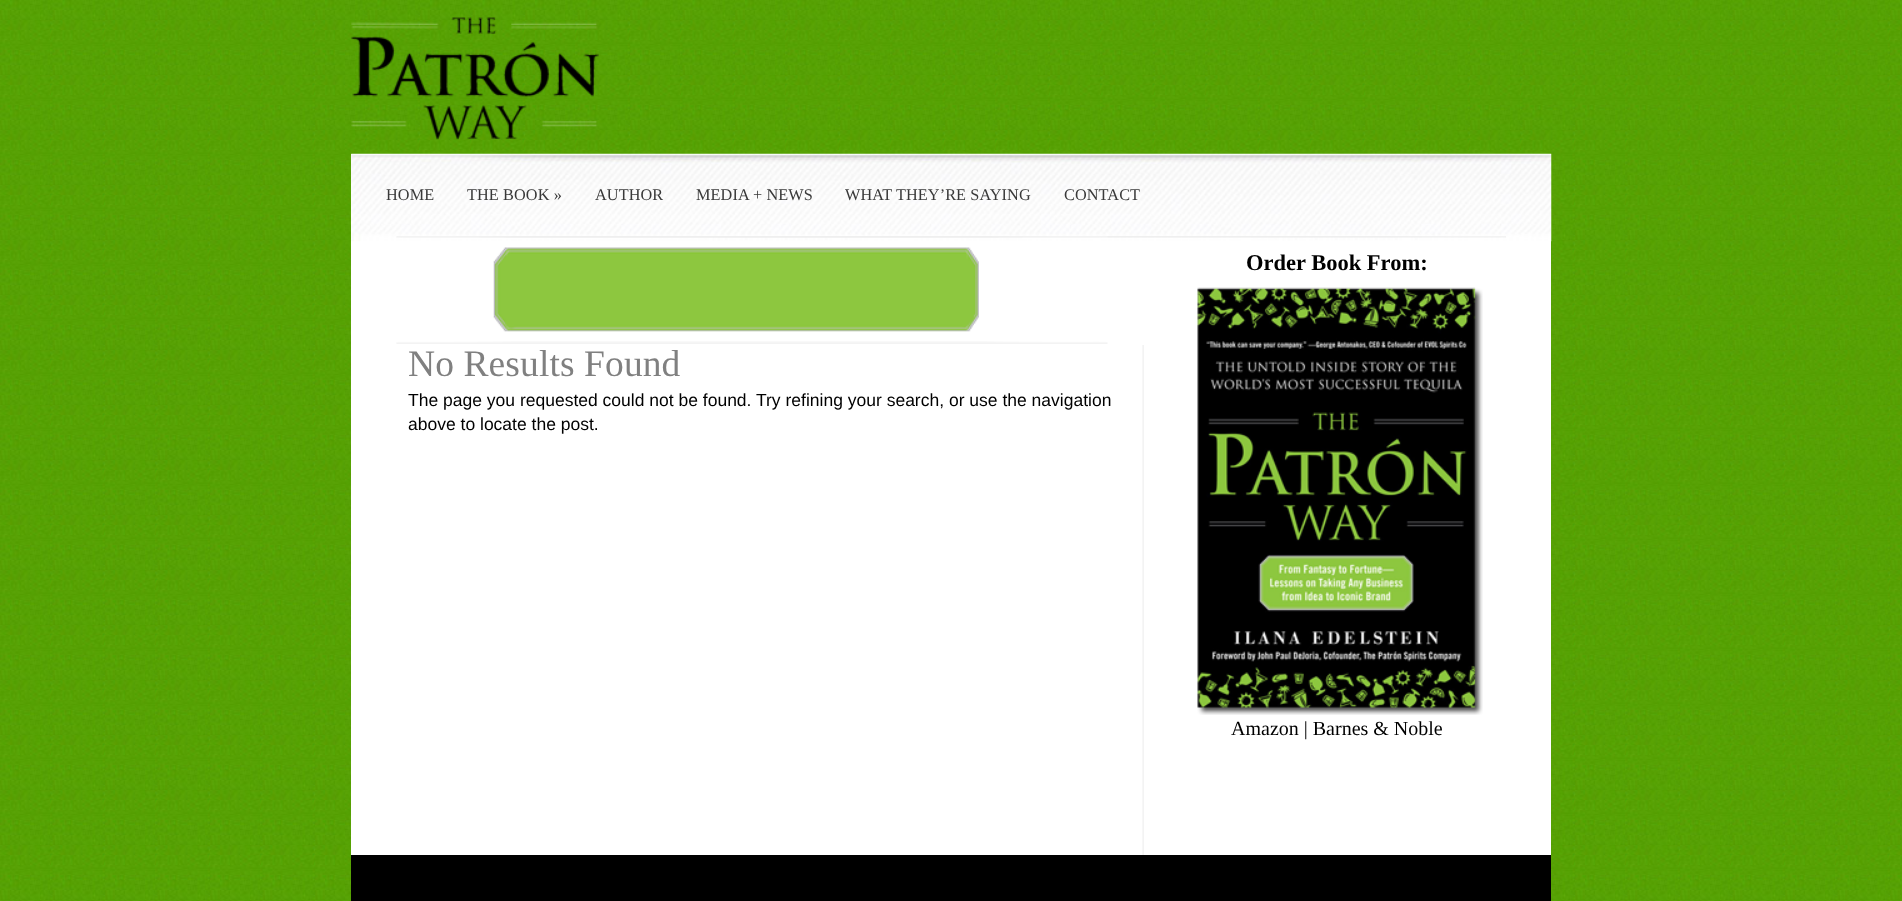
<!DOCTYPE html>
<meta charset="utf-8">
<style>body { margin: 0 } canvas { display: block }</style>
<canvas id="canvas" width="1902" height="901"></canvas>
<script type="module">
  const canvas = document.getElementById("canvas");
  const g = canvas.getContext("2d");
  g.miterLimit = 4;
  g.fontKerning = "normal";
  function drawText(s, x, y, [font, color]) {
    g.font = font;
    g.fillStyle = color;
    g.fillText(s, x, y);
  }
  function fillBox(x, y, w, h, color) {
    g.fillStyle = color;
    g.fillRect(x, y, w, h);
  }
  async function drawPicture(src, x, y, w, h) {
    const img = new Image();
    img.src = src;
    await img.decode();
    g.drawImage(img, x, y, w, h);
  }

  const s1 = ["16.25px Liberation Serif", "#393939"];
  const s2 = ["37.5px Liberation Serif", "#808080"];
  const s3 = ["17.5px Liberation Sans", "#000000"];
  const s4 = ["bold 22.5px Liberation Serif", "#000000"];
  const s5 = ["20px Liberation Serif", "#000000"];

  fillBox(0, 0, 1902, 901, "#FFFFFF");
  await drawPicture("pic1.png", 0, 0, 1902, 901);
  fillBox(351, 154, 1200, 701, "#FFFFFF");
  await drawPicture("pic2.png", 351, 153, 1201, 89);
  await drawPicture("pic3.png", 351, 17, 248, 123);
  g.letterSpacing = "0.1px";
  drawText("HOME", 386, 200, s1);
  drawText("THE BOOK »", 467, 200, s1);
  drawText("AUTHOR", 595, 200, s1);
  drawText("MEDIA + NEWS", 696, 200, s1);
  drawText("WHAT THEY’RE SAYING", 845, 200, s1);
  drawText("CONTACT", 1064, 200, s1);
  await drawPicture("pic4.png", 396, 236, 1110, 2);
  await drawPicture("pic5.png", 396, 341, 712, 3);
  await drawPicture("pic6.png", 493, 247, 486, 85);
  await drawPicture("pic7.png", 1142, 345, 2, 510);
  drawText("No Results Found", 408, 376, s2);
  g.letterSpacing = "0px";
  drawText("The page you requested could not be found. Try refining your search, or use the navigation", 408, 406, s3);
  drawText("above to locate the post.", 408, 430, s3);
  drawText("Order Book From:", 1246, 270, s4);
  await drawPicture("pic8.png", 1197, 287, 286, 428);
  drawText("Amazon | Barnes & Noble", 1231, 735, s5);
  fillBox(351, 855, 1200, 46, "#000000");
</script>
